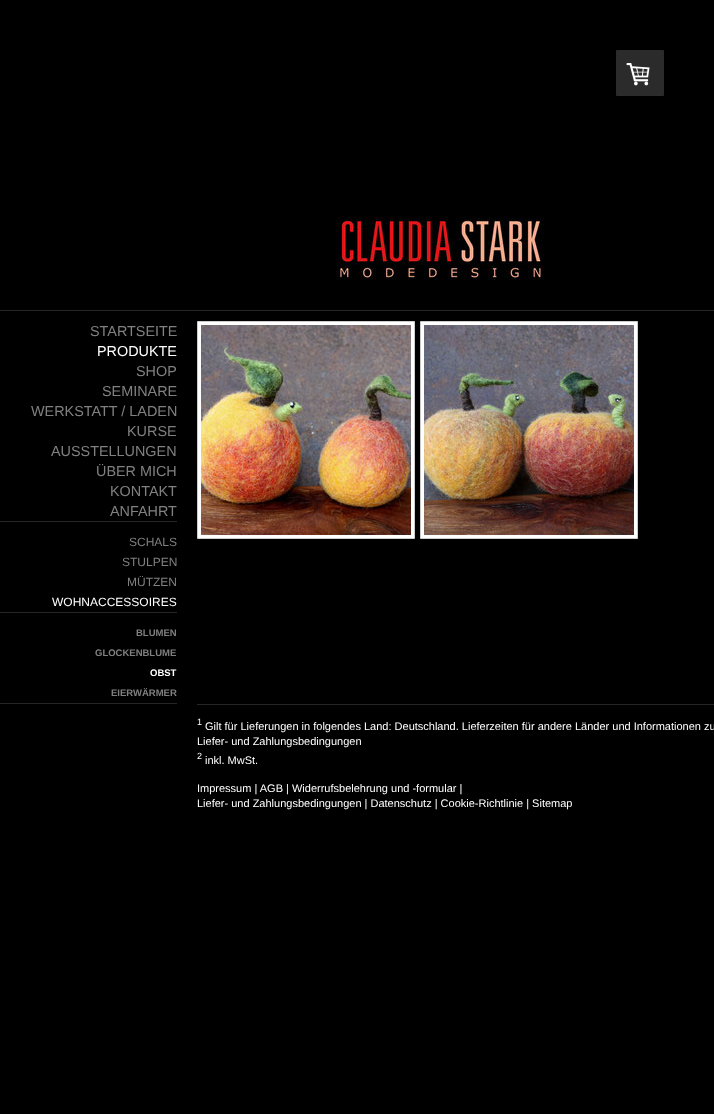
<!DOCTYPE html>
<meta charset="utf-8">
<style>body { margin: 0 } canvas { display: block }</style>
<canvas id="canvas" width="714" height="1114"></canvas>
<script type="module">
  const canvas = document.getElementById("canvas");
  const g = canvas.getContext("2d");
  g.miterLimit = 4;
  g.fontKerning = "normal";
  function drawText(s, x, y, [font, color]) {
    g.font = font;
    g.fillStyle = color;
    g.fillText(s, x, y);
  }
  function fillBox(x, y, w, h, color) {
    g.fillStyle = color;
    g.fillRect(x, y, w, h);
  }
  function fillRounded(x, y, w, h, r, color) {
    g.fillStyle = color;
    g.beginPath();
    g.roundRect(x, y, w, h, r);
    g.fill();
  }
  async function drawPicture(src, x, y, w, h) {
    const img = new Image();
    img.src = src;
    await img.decode();
    g.drawImage(img, x, y, w, h);
  }

  const s1 = ["14.4px Liberation Sans", "#808080"];
  const s2 = ["14.4px Liberation Sans", "#FFFFFF"];
  const s3 = ["12px Liberation Sans", "#808080"];
  const s4 = ["12px Liberation Sans", "#FFFFFF"];
  const s5 = ["bold 9.5px Liberation Sans", "#808080"];
  const s6 = ["bold 9.5px Liberation Sans", "#FFFFFF"];
  const s7 = ["9px Liberation Sans", "#FFFFFF"];
  const s8 = ["11px Liberation Sans", "#FFFFFF"];

  fillBox(0, 0, 714, 1114, "#000000");
  fillBox(0, 310, 714, 1, "#262626");
  await drawPicture("pic1.png", 336, 217, 209, 63);
  fillRounded(616, 50, 48, 46, 1, "#2B2B2B");
  await drawPicture("pic2.png", 626, 63, 24, 23);
  fillBox(0, 521, 177, 1, "#262626");
  drawText("STARTSEITE", 90, 336, s1);
  drawText("PRODUKTE", 97, 356, s2);
  drawText("SHOP", 136, 376, s1);
  drawText("SEMINARE", 102, 396, s1);
  drawText("WERKSTATT / LADEN", 31, 416, s1);
  drawText("KURSE", 127, 436, s1);
  drawText("AUSSTELLUNGEN", 51, 456, s1);
  drawText("ÜBER MICH", 96, 476, s1);
  drawText("KONTAKT", 110, 496, s1);
  drawText("ANFAHRT", 110, 516, s1);
  fillBox(0, 612, 177, 1, "#262626");
  drawText("SCHALS", 129, 546, s3);
  drawText("STULPEN", 122, 566, s3);
  drawText("MÜTZEN", 127, 586, s3);
  drawText("WOHNACCESSOIRES", 52, 606, s4);
  fillBox(0, 703, 177, 1, "#262626");
  drawText("BLUMEN", 136, 636, s5);
  drawText("GLOCKENBLUME", 95, 656, s5);
  drawText("OBST", 150, 676, s6);
  drawText("EIERWÄRMER", 111, 696, s5);
  g.fillStyle = "#FFFFFF";
  g.beginPath();
  g.rect(197.5, 321.5, 217, 217);
  g.fill();
  g.strokeStyle = "#CCCCCC";
  g.stroke();
  await drawPicture("pic3.png", 201, 325, 210, 210);
  g.beginPath();
  g.rect(420.5, 321.5, 217, 217);
  g.fill();
  g.stroke();
  await drawPicture("pic4.png", 424, 325, 210, 210);
  fillBox(197, 704, 517, 1, "#262626");
  drawText("1", 197, 725, s7);
  drawText("Gilt für Lieferungen in folgendes Land: Deutschland. Lieferzeiten für andere Länder und Informationen zu", 205, 730, s8);
  drawText("Liefer- und Zahlungsbedingungen", 197, 745, s8);
  drawText("2", 197, 759, s7);
  drawText("inkl. MwSt.", 205, 764, s8);
  drawText("Impressum | AGB | Widerrufsbelehrung und -formular |", 197, 792, s8);
  drawText("Liefer- und Zahlungsbedingungen | Datenschutz | Cookie-Richtlinie | Sitemap", 197, 807, s8);
</script>
